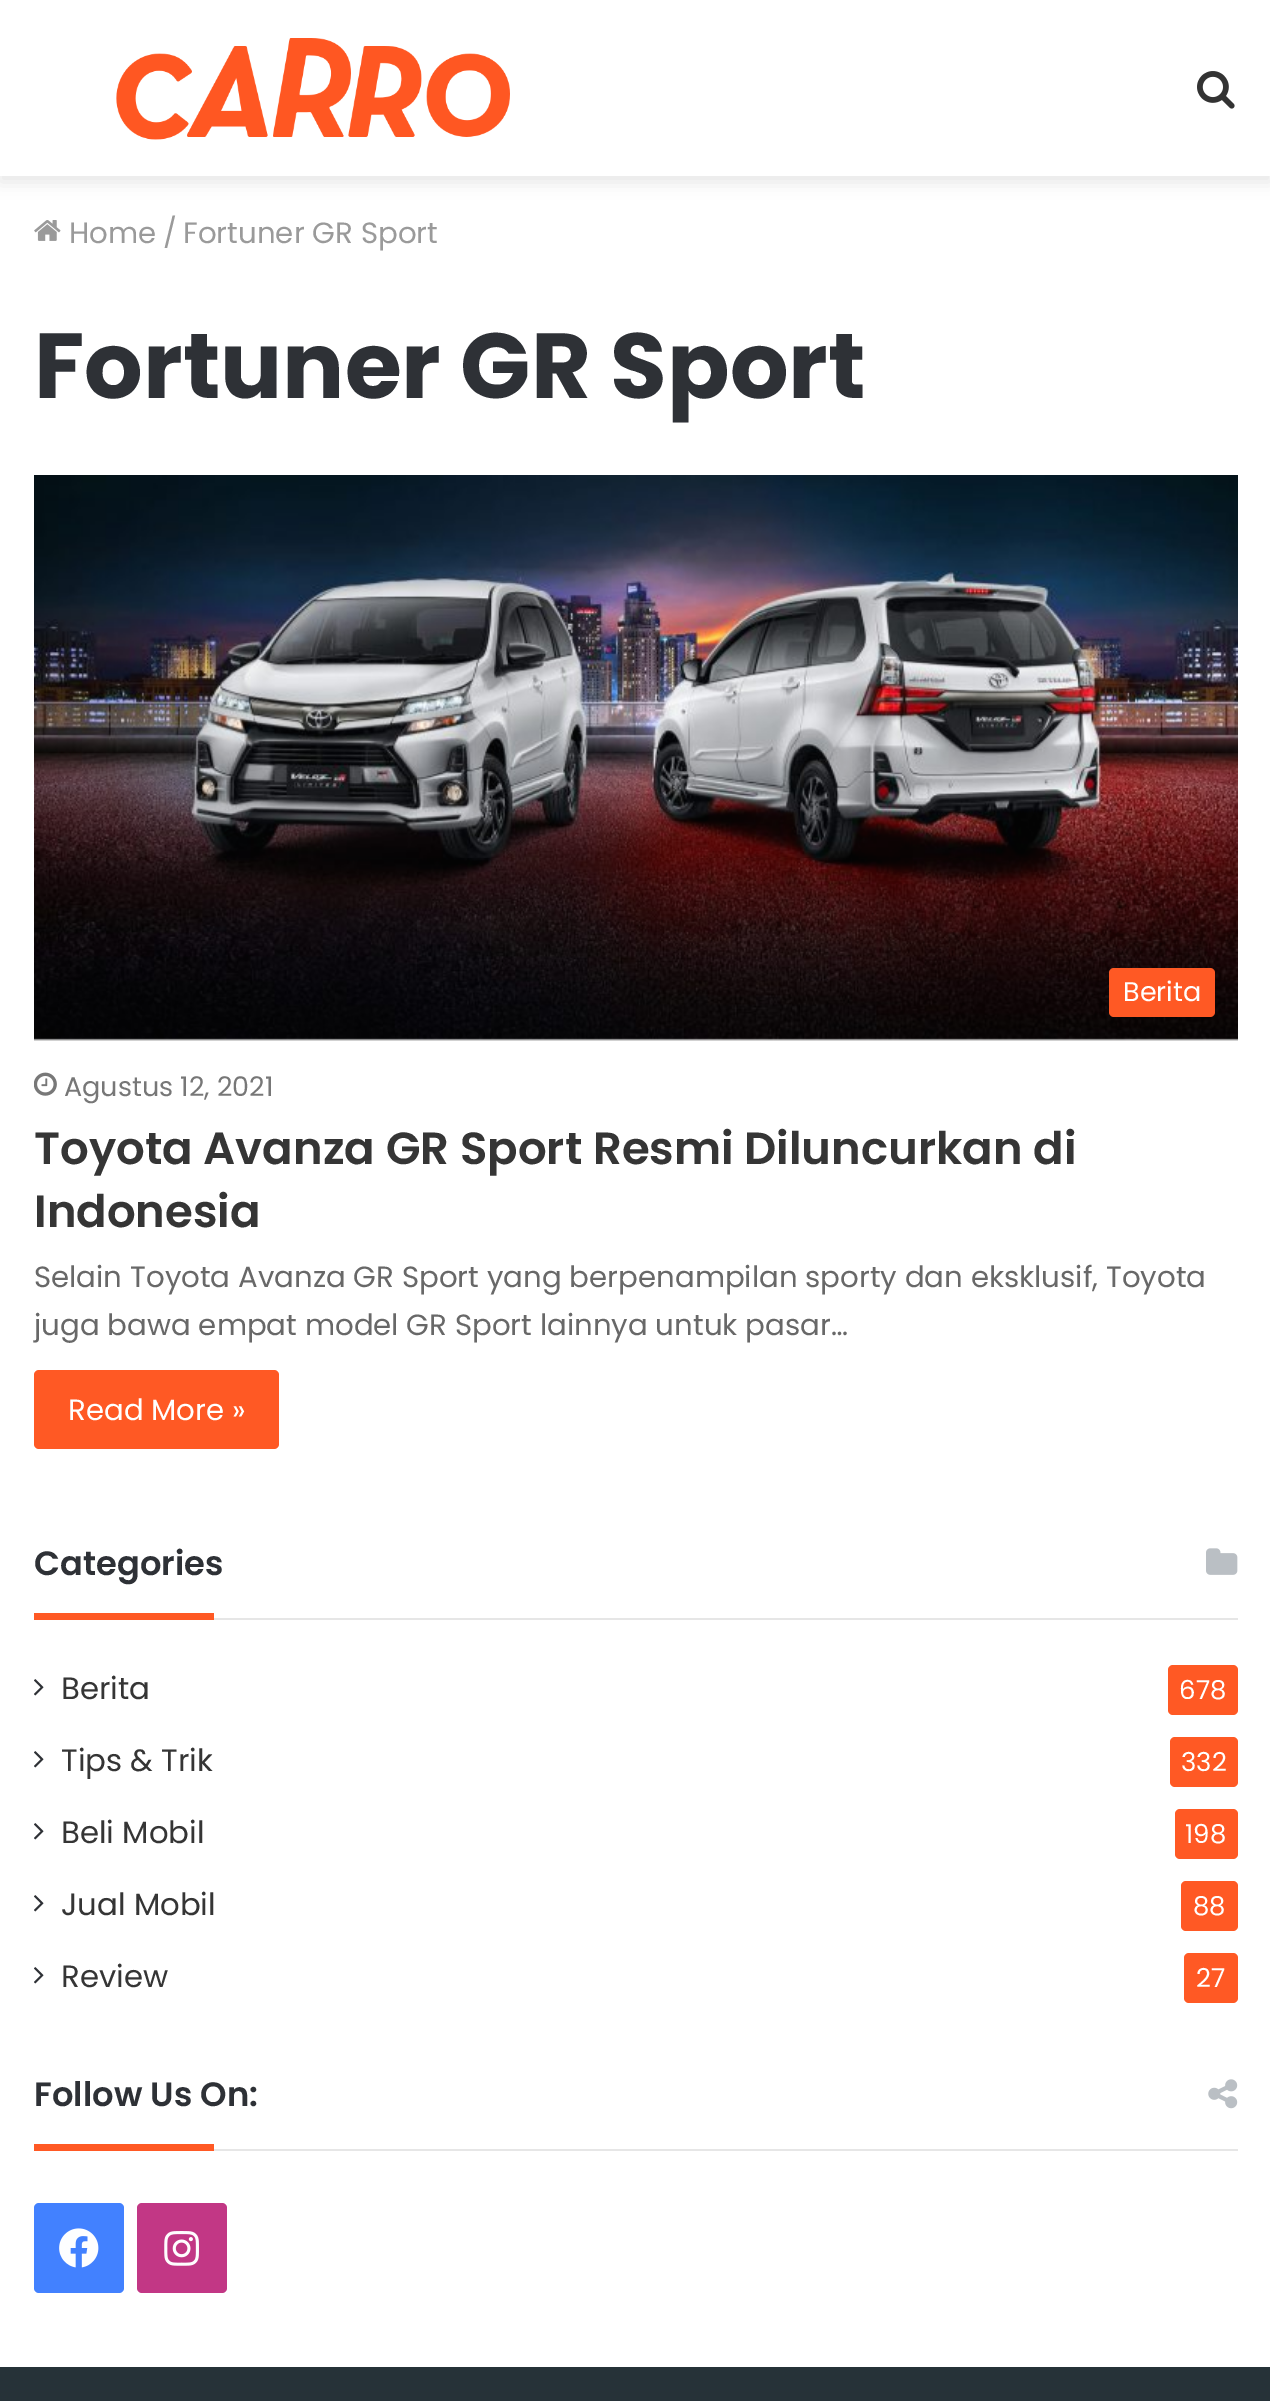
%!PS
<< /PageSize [1270 2401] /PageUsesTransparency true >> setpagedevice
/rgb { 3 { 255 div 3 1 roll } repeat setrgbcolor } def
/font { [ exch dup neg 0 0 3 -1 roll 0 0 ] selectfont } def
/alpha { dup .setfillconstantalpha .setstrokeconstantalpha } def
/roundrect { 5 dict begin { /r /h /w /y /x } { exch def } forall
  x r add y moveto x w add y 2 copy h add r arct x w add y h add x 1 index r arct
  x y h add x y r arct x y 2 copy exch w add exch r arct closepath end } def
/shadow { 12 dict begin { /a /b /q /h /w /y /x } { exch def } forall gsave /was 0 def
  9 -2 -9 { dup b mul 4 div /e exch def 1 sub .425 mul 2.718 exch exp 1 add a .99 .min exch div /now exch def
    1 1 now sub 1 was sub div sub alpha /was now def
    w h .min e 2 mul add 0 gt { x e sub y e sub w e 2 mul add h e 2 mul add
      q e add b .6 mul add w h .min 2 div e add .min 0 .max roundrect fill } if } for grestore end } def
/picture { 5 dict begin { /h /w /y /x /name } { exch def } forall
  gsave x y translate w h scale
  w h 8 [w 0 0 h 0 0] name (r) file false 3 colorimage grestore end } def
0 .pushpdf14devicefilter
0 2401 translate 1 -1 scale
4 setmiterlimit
255 255 255 rgb
0 0 1270 2401 rectfill
0 0 0 rgb
0 7 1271 175 0 8 0.1 shadow
255 255 255 rgb
0 0 1270 176 rectfill
(img/1.rgb) 116 38 394 102 picture
(img/2.rgb) 1197 71 38 38 picture
(img/3.rgb) 34 220 27 21 picture
(img/4.rgb) 34 475 1204 566 picture
255 89 36 rgb
1109 968 106 49 5 roundrect fill
(img/5.rgb) 34 1072 23 24 picture
34 1370 245 79 5 roundrect fill
230 230 230 rgb
214 1618 1024 2 rectfill
(img/6.rgb) 1206 1548 32 27 picture
255 89 36 rgb
34 1613 180 7 rectfill
(img/7.rgb) 34 1679 10 17 picture
1168 1665 70 50 5 roundrect fill
(img/7.rgb) 34 1751 10 17 picture
1170 1737 68 50 5 roundrect fill
(img/7.rgb) 34 1823 10 17 picture
1175 1809 63 50 5 roundrect fill
(img/7.rgb) 34 1895 10 17 picture
1181 1881 57 50 5 roundrect fill
(img/7.rgb) 34 1967 10 17 picture
1184 1953 54 50 5 roundrect fill
230 230 230 rgb
214 2149 1024 2 rectfill
(img/8.rgb) 1208 2079 30 30 picture
255 89 36 rgb
34 2144 180 7 rectfill
66 129 255 rgb
34 2203 90 90 5 roundrect fill
(img/9.rgb) 59 2228 40 40 picture
194 55 133 rgb
137 2203 90 90 5 roundrect fill
(img/10.rgb) 164 2231 35 35 picture
38 50 56 rgb
0 2367 1270 34 rectfill
/Poppins-Regular 29.25 font
154 154 154 rgb
[
  [(Home) 69 243]
  [(/) 163 243]
  [(Fortuner GR Sport) 183 243]
] { aload pop moveto show } forall
/Poppins-Bold 92.25 font
46 49 54 rgb
34 398 moveto (Fortuner GR Sport) show
/Poppins-Regular 27 font
255 255 255 rgb
1123 1001 moveto (Berita) show
119 119 119 rgb
64 1096 moveto (Agustus 12, 2021) show
/Poppins-SemiBold 45 font
53 53 53 rgb
34 1164 moveto (Toyota Avanza GR Sport Resmi Diluncurkan di) show
34 1227 moveto (Indonesia) show
/Poppins-Regular 29.25 font
104 104 104 rgb
34 1287 moveto (Selain Toyota Avanza GR Sport yang berpenampilan sporty dan eksklusif, Toyota) show
34 1335 moveto (juga bawa empat model GR Sport lainnya untuk pasar…) show
255 255 255 rgb
68 1420 moveto (Read More ») show
/Poppins-SemiBold 33.75 font
46 49 54 rgb
34 1575 moveto (Categories) show
/Poppins-Regular 30.75 font
53 53 53 rgb
61 1699 moveto (Berita) show
/Poppins-Regular 26 font
255 255 255 rgb
1179 1699 moveto (678) show
/Poppins-Regular 30.75 font
53 53 53 rgb
61 1771 moveto (Tips & Trik) show
/Poppins-Regular 26 font
255 255 255 rgb
1181 1771 moveto (332) show
/Poppins-Regular 30.75 font
53 53 53 rgb
61 1843 moveto (Beli Mobil) show
/Poppins-Regular 26 font
255 255 255 rgb
1185 1843 moveto (198) show
/Poppins-Regular 30.75 font
53 53 53 rgb
61 1915 moveto (Jual Mobil) show
/Poppins-Regular 26 font
255 255 255 rgb
1193 1915 moveto (88) show
/Poppins-Regular 30.75 font
53 53 53 rgb
61 1987 moveto (Review) show
/Poppins-Regular 26 font
255 255 255 rgb
1196 1987 moveto (27) show
/Poppins-SemiBold 33.75 font
46 49 54 rgb
34 2106 moveto (Follow Us On:) show
.poppdf14devicefilter showpage
